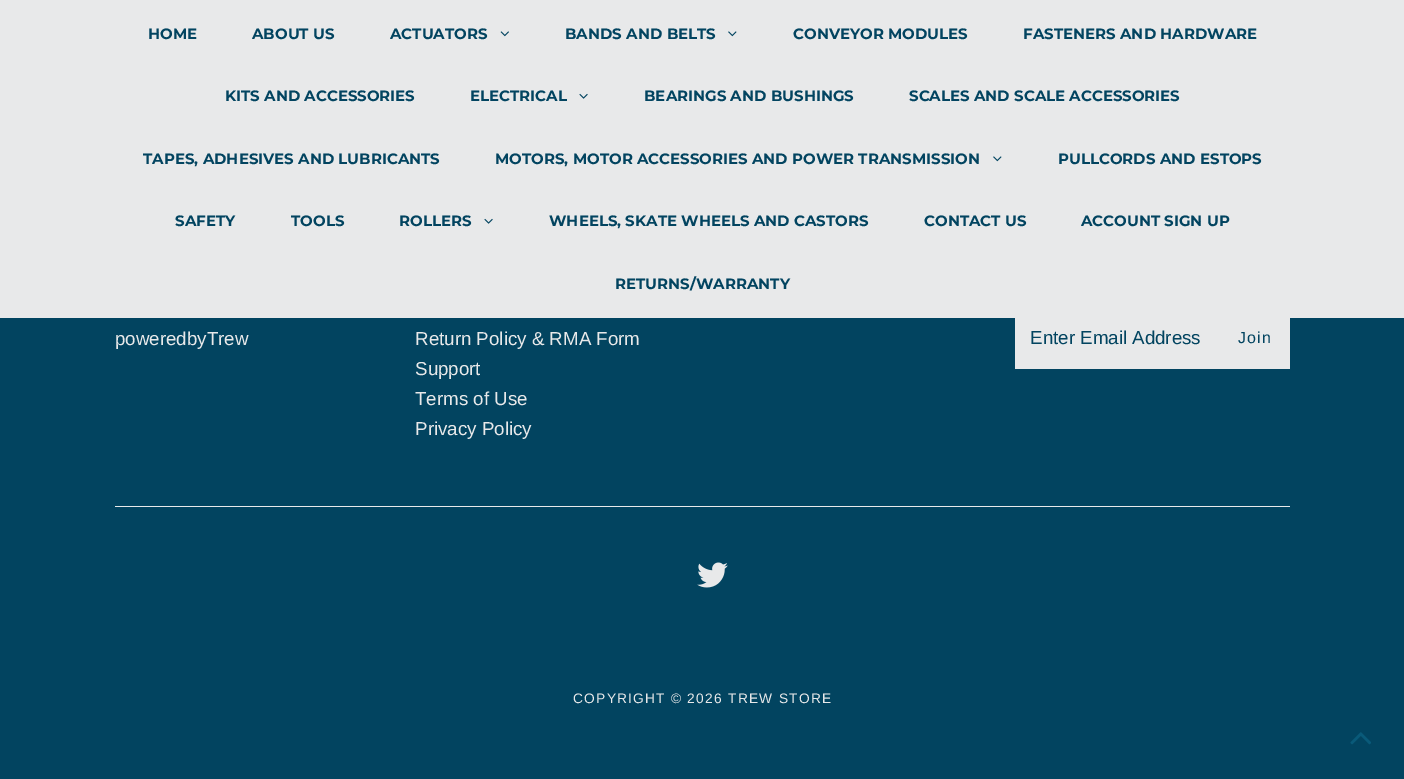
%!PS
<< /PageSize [1404 779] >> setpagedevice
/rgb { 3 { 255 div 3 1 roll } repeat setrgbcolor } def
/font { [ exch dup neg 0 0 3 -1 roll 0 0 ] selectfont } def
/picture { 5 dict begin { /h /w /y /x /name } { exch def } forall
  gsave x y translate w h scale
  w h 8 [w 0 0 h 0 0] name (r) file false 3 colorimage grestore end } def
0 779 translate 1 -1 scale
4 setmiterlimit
2 68 96 rgb
0 0 1404 779 rectfill
232 233 234 rgb
0 0 1404 318 rectfill
(img/1.rgb) 500 31 9 6 picture
(img/2.rgb) 728 31 9 6 picture
(img/3.rgb) 579 93 9 6 picture
(img/2.rgb) 993 156 9 6 picture
(img/3.rgb) 484 218 9 6 picture
1015 318 275 51 rectfill
115 506 1175 1 rectfill
(img/4.rgb) 697 562 31 26 picture
(img/5.rgb) 1350 732 21 13 picture
/Montserrat-Bold 15 font
2 68 96 rgb
[
  [(HOME) 148 39]
  [(ABOUT US) 252 39]
  [(ACTUATORS) 390 39]
  [(BANDS AND BELTS) 565 39]
  [(CONVEYOR MODULES) 793 39]
  [(FASTENERS AND HARDWARE) 1023 39]
  [(KITS AND ACCESSORIES) 225 101]
  [(ELECTRICAL) 470 101]
  [(BEARINGS AND BUSHINGS) 644 101]
  [(SCALES AND SCALE ACCESSORIES) 909 101]
  [(TAPES, ADHESIVES AND LUBRICANTS) 143 164]
  [(MOTORS, MOTOR ACCESSORIES AND POWER TRANSMISSION) 495 164]
  [(PULLCORDS AND ESTOPS) 1058 164]
  [(SAFETY) 175 226]
  [(TOOLS) 291 226]
  [(ROLLERS) 399 226]
  [(WHEELS, SKATE WHEELS AND CASTORS) 549 226]
  [(CONTACT US) 924 226]
  [(ACCOUNT SIGN UP) 1081 226]
  [(RETURNS/WARRANTY) 615 289]
] { aload pop moveto show } forall
/LiberationSans-Regular 18.75 font
232 233 234 rgb
[
  [(poweredbyTrew) 115 345]
  [(Return Policy & RMA Form) 415 345]
  [(Support) 415 375]
  [(Terms of Use) 415 405]
  [(Privacy Policy) 415 435]
] { aload pop moveto show } forall
2 68 96 rgb
1030 344 moveto (Enter Email Address) show
/LiberationSans-Regular 16 font
1238 343 moveto 1.25 0 (Join) ashow
/LiberationSans-Regular 13.75 font
232 233 234 rgb
573 703 moveto 1.25 0 (COPYRIGHT © 2026 TREW STORE) ashow
showpage
